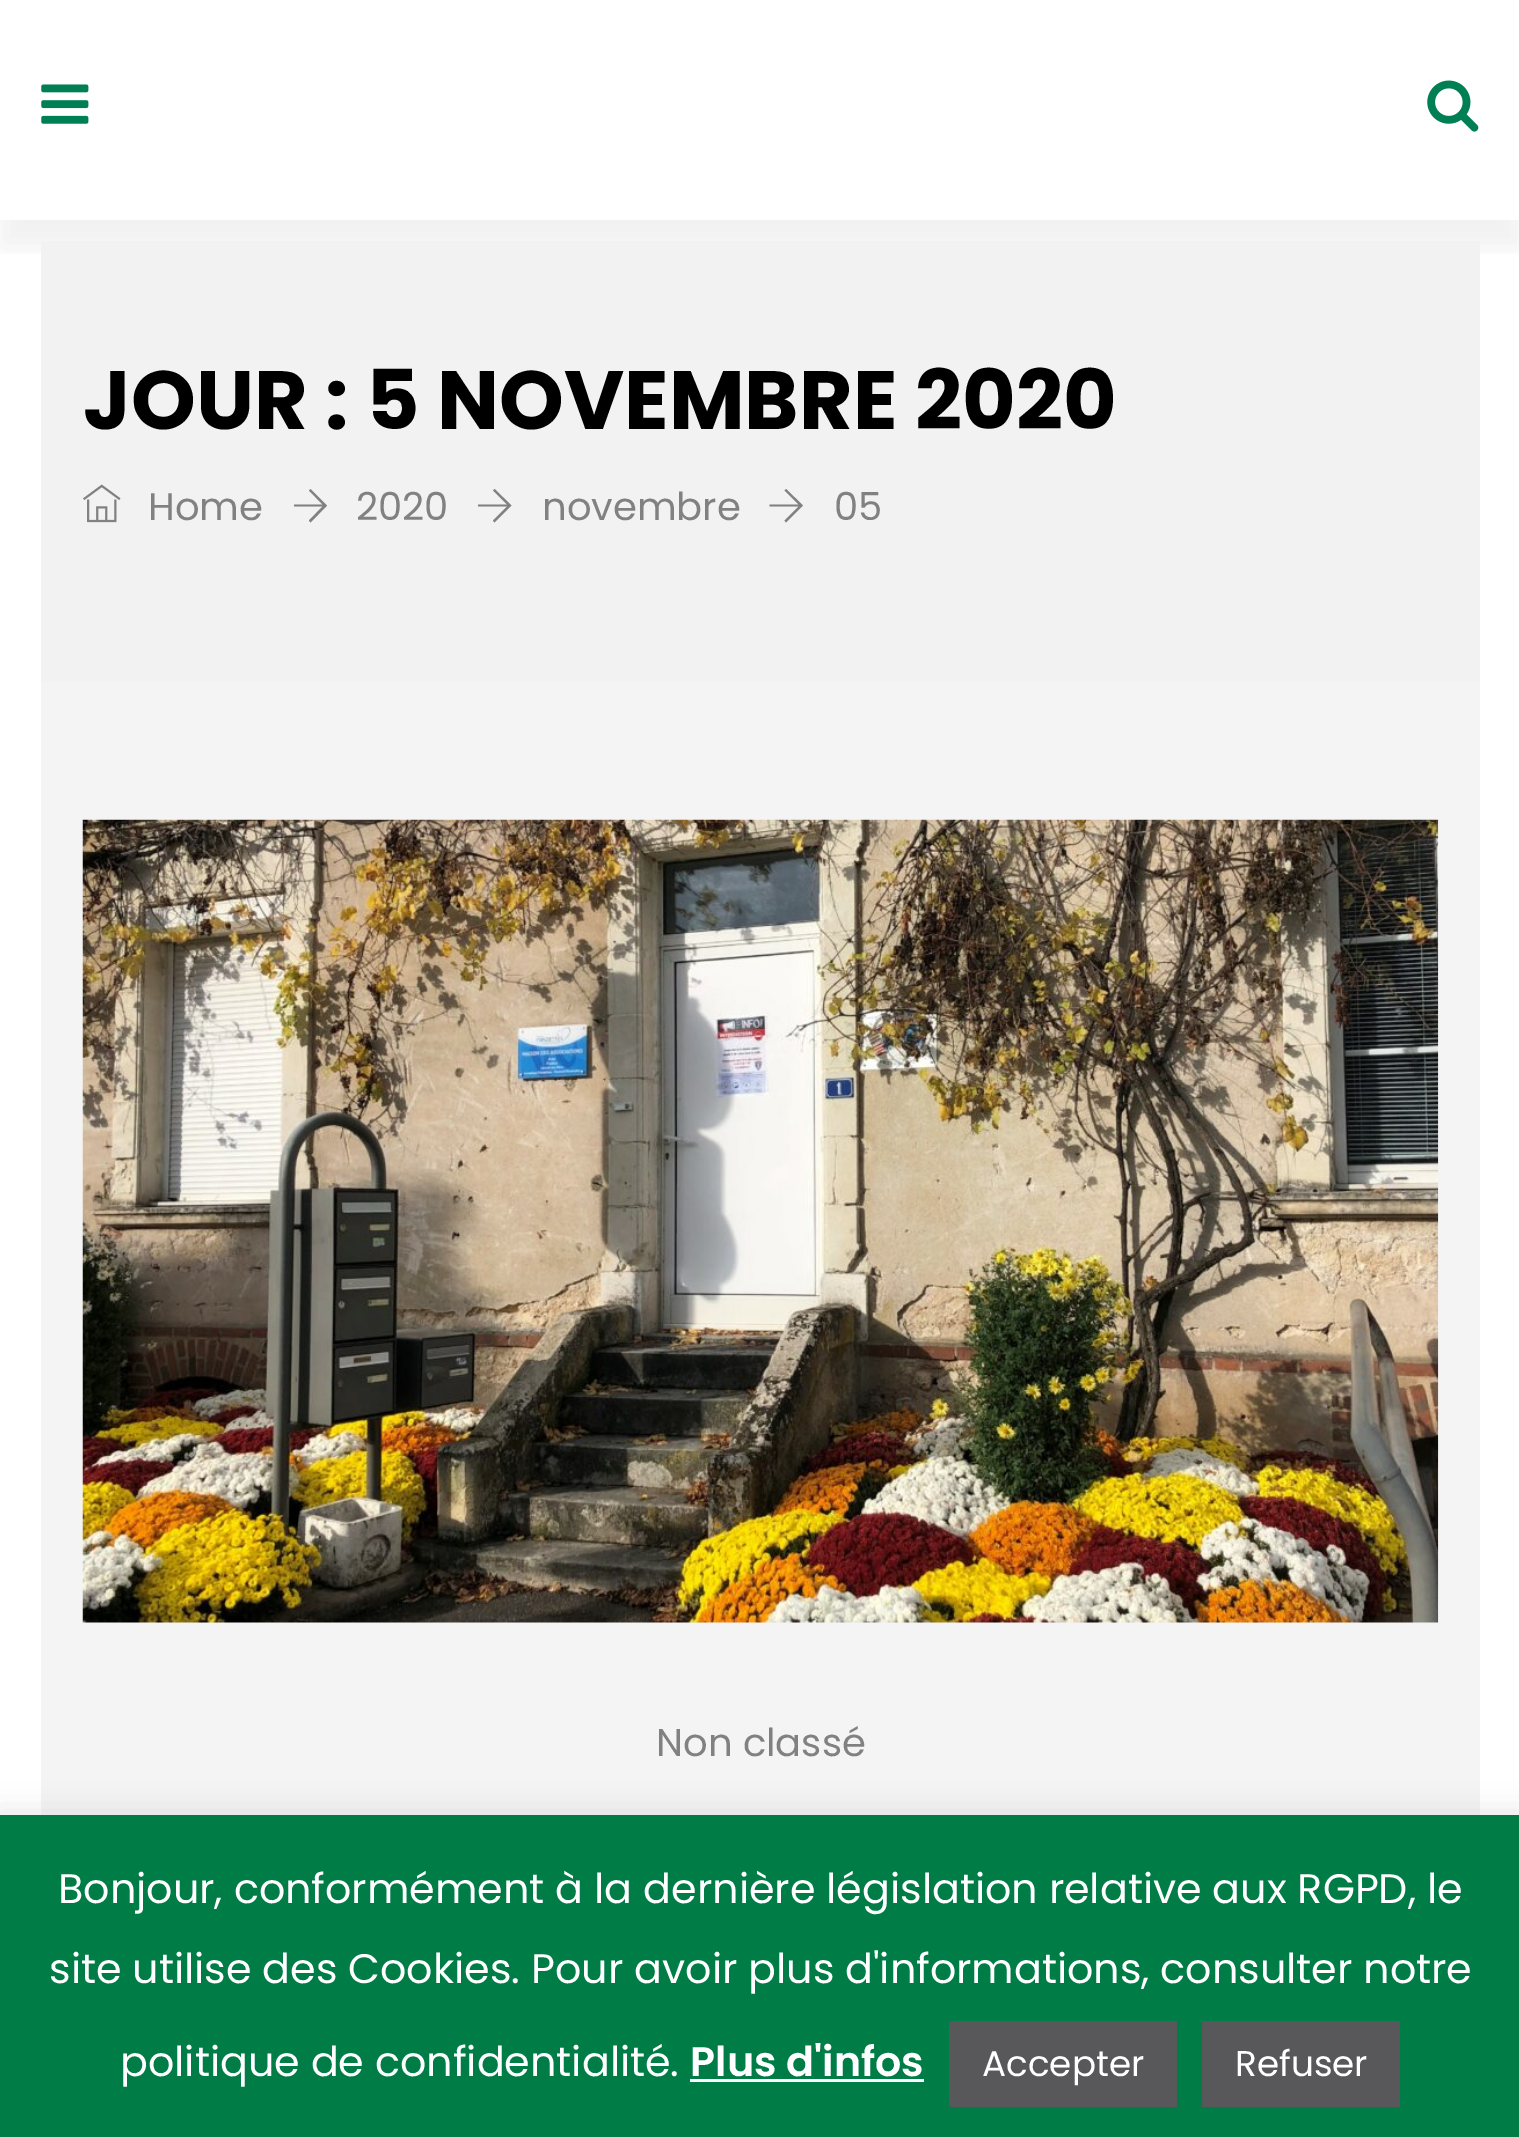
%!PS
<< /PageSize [1519 2137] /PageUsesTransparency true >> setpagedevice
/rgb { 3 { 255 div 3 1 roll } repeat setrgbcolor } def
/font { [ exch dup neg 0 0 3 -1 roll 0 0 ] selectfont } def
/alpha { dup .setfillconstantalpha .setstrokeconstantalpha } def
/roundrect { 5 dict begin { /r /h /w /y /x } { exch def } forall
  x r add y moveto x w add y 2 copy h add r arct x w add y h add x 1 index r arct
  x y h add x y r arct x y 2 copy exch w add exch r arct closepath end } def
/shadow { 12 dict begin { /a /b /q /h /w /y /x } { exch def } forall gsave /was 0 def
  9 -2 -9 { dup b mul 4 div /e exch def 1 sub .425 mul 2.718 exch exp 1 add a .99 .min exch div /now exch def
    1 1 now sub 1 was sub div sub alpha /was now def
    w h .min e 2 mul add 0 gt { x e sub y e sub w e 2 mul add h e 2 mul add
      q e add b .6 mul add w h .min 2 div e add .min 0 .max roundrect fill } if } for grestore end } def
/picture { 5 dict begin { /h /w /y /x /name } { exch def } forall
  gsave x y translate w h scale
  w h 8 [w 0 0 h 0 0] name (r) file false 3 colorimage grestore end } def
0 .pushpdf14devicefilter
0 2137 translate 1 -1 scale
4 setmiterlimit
255 255 255 rgb
0 0 1519 2137 rectfill
gsave
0 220 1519 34 rectclip
0 0 0 rgb
0 28 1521 220 0 14 0.06 shadow
grestore
(img/1.rgb) 41 84 48 40 picture
(img/2.rgb) 1427 80 52 52 picture
242 242 242 rgb
41 241 1439 441 rectfill
(img/3.rgb) 83 484 38 39 picture
129 129 129 rgb
327 505.5 moveto 310.5 522.5 lineto 309 520.5 lineto 322.5 506.5 lineto 294 506.5 lineto 294 504.5 lineto 322.5 504.5 lineto 309 490.5 lineto 310.5 489 lineto closepath fill
511.5 505.5 moveto 494.5 522.5 lineto 493 520.5 lineto 507 506.5 lineto 478 506.5 lineto 478 504.5 lineto 507 504.5 lineto 493 490.5 lineto 494.5 489 lineto closepath fill
803 505.5 moveto 786 522.5 lineto 784.5 520.5 lineto 798.5 506.5 lineto 769.5 506.5 lineto 769.5 504.5 lineto 798.5 504.5 lineto 784.5 490.5 lineto 786 489 lineto closepath fill
244 244 244 rgb
41 682 1439 1133 rectfill
(img/4.rgb) 82 819 1357 804 picture
172 171 171 rgb
0 1812 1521 325 0 14 0.3 shadow
[
  [0 1815 1519 322 0 125 71]
  [690 2079 234 3 255 255 255]
  [949 2021 228 86 88 88 90]
  [1202 2021 198 86 88 88 90]
] { aload pop rgb rectfill } forall
/Poppins-Bold 82.5 font
0 0 0 rgb
83 429 moveto (JOUR : 5 NOVEMBRE 2020) show
/Poppins-Regular 38.5 font
129 129 129 rgb
[
  [(Home) 148 520]
  [(2020) 356 520]
  [(novembre) 542 520]
  [(05) 834 520]
  [(Non classé) 656 1756]
] { aload pop moveto show } forall
/Poppins-Regular 41.25 font
255 255 255 rgb
[
  [(Bonjour, conformément à la dernière législation relative aux RGPD, le) 58 1903]
  [(site utilise des Cookies. Pour avoir plus d'informations, consulter notre) 49 1983]
  [(politique de confidentialité.) 120 2076]
] { aload pop moveto show } forall
/Poppins-SemiBold 41.25 font
690 2076 moveto (Plus d'infos) show
/Poppins-Regular 35.75 font
982 2076 moveto (Accepter) show
1235 2076 moveto (Refuser) show
.poppdf14devicefilter showpage
